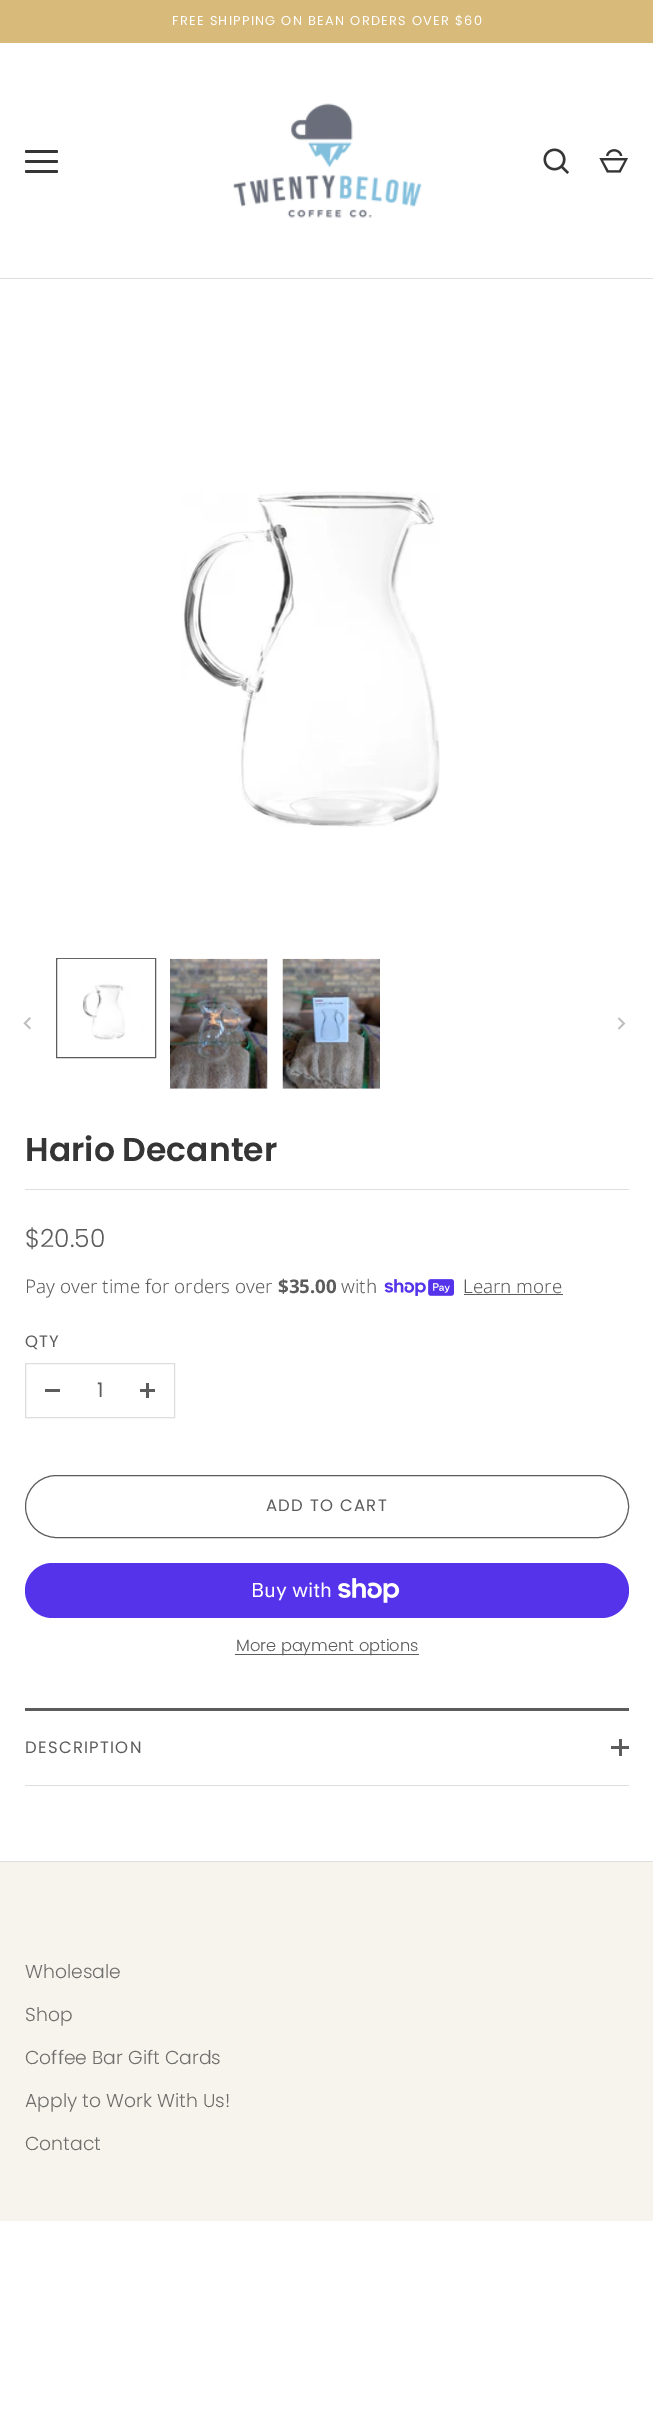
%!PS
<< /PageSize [653 2420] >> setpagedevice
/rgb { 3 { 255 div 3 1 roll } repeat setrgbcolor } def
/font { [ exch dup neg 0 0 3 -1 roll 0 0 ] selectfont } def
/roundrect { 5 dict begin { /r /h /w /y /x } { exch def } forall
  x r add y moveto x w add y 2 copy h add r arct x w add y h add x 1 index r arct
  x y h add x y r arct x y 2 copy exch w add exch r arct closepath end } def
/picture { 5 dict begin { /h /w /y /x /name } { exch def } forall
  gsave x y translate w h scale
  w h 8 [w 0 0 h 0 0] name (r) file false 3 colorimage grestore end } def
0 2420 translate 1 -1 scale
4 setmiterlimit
255 255 255 rgb
0 0 653 2420 rectfill
216 186 122 rgb
0 0 653 43 rectfill
52 53 52 rgb
25 150 33 3 1.5 roundrect fill
25 160 33 3 1.5 roundrect fill
25 170 33 3 1.5 roundrect fill
(img/1.rgb) 233 103 189 115 picture
(img/2.rgb) 543 148 26 26 picture
(img/3.rgb) 599 149 29 24 picture
222 222 222 rgb
0 278 653 1 rectfill
(img/4.rgb) 182 491 258 337 picture
92 92 92 rgb
56.5 958.5 99 99 rectstroke
(img/5.rgb) 58 958 97 82 picture
(img/6.rgb) 170 958 98 131 picture
(img/7.rgb) 282 958 98 131 picture
(img/8.rgb) 23 1017 8 13 picture
(img/9.rgb) 617 1017 9 13 picture
222 222 222 rgb
25 1189 604 1 rectfill
(img/10.rgb) 384 1279 70 17 picture
92 92 92 rgb
464 1294 99 1 rectfill
222 222 222 rgb
25.5 1363.5 149 54 rectstroke
[
  [45 1389 15 3 92 92 92]
  [140 1389 15 3 92 92 92]
  [146 1383 3 15 92 92 92]
] { aload pop rgb rectfill } forall
25.5 1475.5 603 62 31 roundrect stroke
84 51 235 rgb
25 1563 604 55 27.5 roundrect fill
(img/11.rgb) 338 1578 62 25 picture
[
  [235 1654 184 1 92 92 92]
  [25 1708 604 3 92 92 92]
  [25 1785 604 1 222 222 222]
  [611 1746 18 3 92 92 92]
  [619 1739 3 17 92 92 92]
  [0 1862 653 359 246 244 237]
  [0 1861 653 1 222 222 222]
] { aload pop rgb rectfill } forall
/Poppins-Regular 12.9 font
255 255 255 rgb
172 25 moveto 1.3 0 (FREE SHIPPING ON BEAN ORDERS OVER $60) ashow
/Poppins-SemiBold 33 font
52 53 52 rgb
25 1161 moveto (Hario Decanter) show
/Poppins-Light 25 font
92 92 92 rgb
25 1247 moveto ($20.50) show
/NotoSans-Light 18.75 font
25 1293 moveto (Pay over time for orders over) show
/NotoSans-Bold 18.75 font
278 1293 moveto ($35.00) show
/NotoSans-Light 18.75 font
341 1293 moveto (with) show
463 1293 moveto (Learn more) show
/Poppins-Regular 16.5 font
25 1347 moveto 1.25 0 (QTY) ashow
/Poppins-Regular 20 font
97 1397 moveto (1) show
/Poppins-Regular 16.5 font
266 1511 moveto 1.25 0 (ADD TO CART) ashow
/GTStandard-Regular 20 font
255 255 255 rgb
251 1597 moveto (Buy with) show
/Poppins-Light 16.25 font
92 92 92 rgb
236 1651 moveto (More payment options) show
/Poppins-Regular 16.5 font
25 1753 moveto 1.25 0 (DESCRIPTION) ashow
/Poppins-Light 18.75 font
110 110 108 rgb
[
  [(Wholesale) 25 1978]
  [(Shop) 25 2021]
  [(Coffee Bar Gift Cards) 25 2064]
  [(Apply to Work With Us!) 25 2107]
  [(Contact) 25 2150]
] { aload pop moveto show } forall
showpage
